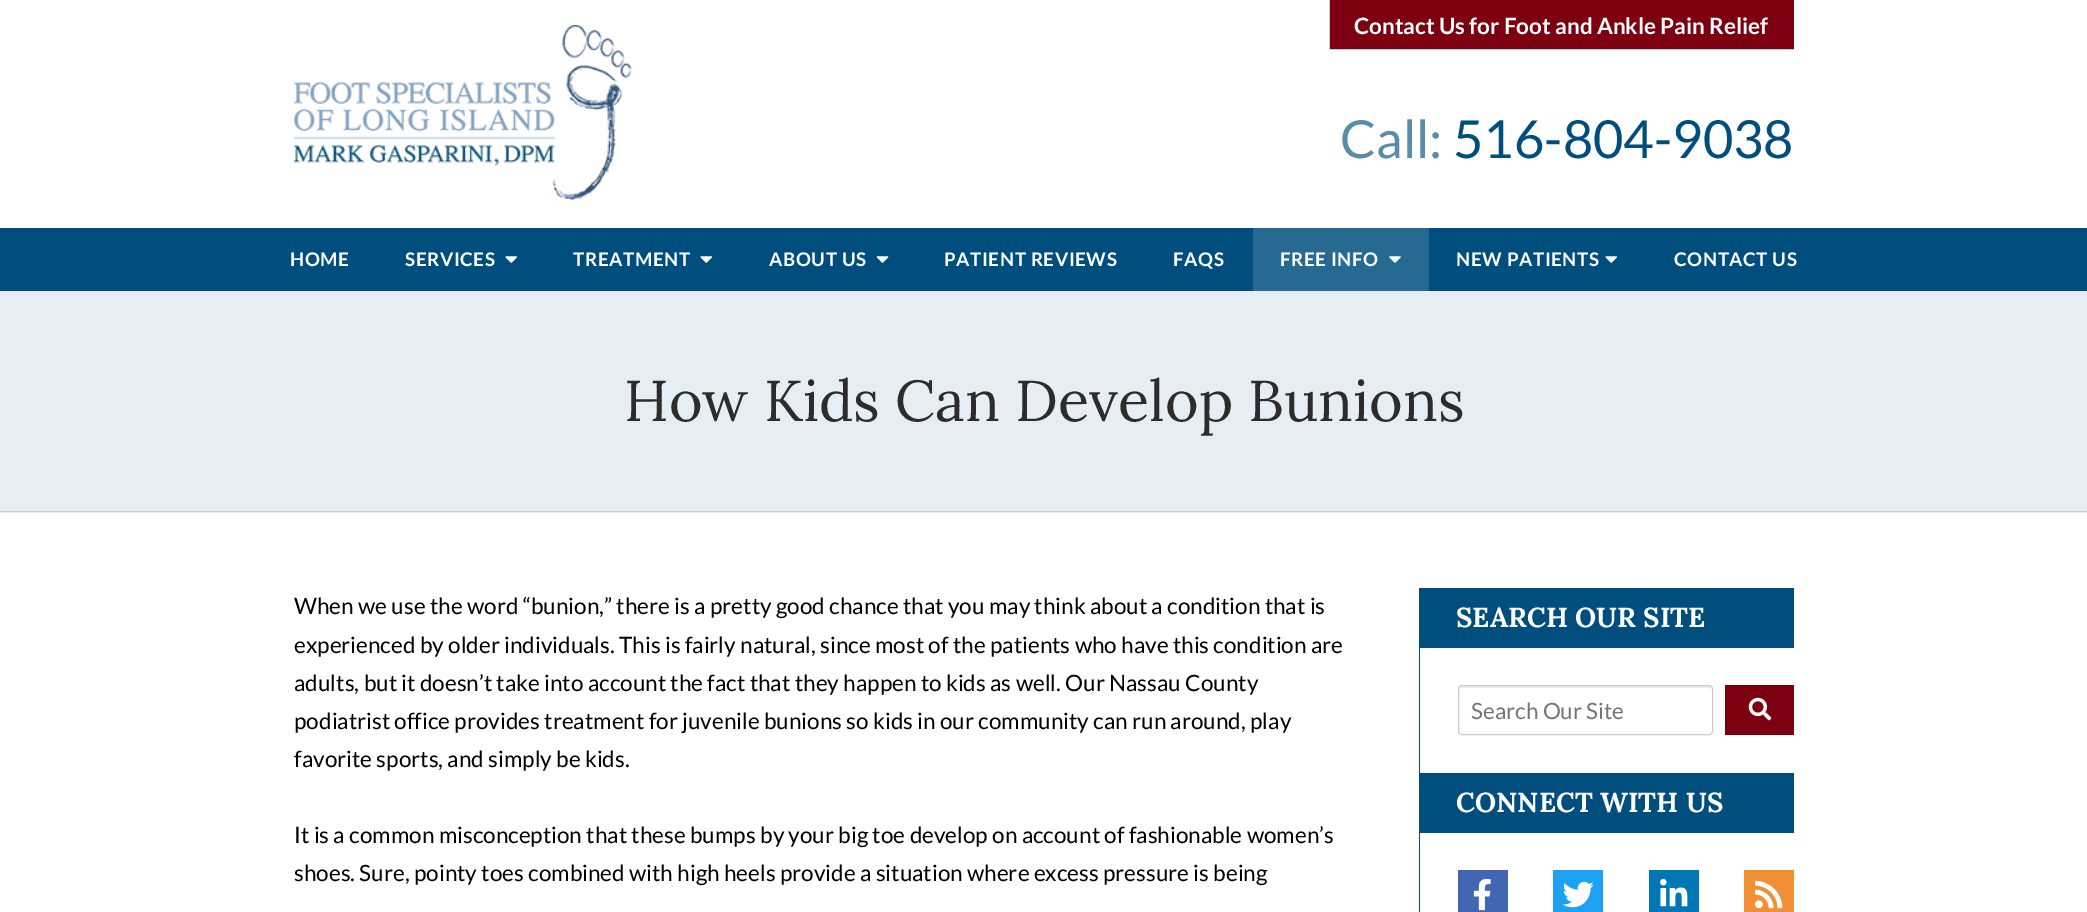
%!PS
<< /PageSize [2087 912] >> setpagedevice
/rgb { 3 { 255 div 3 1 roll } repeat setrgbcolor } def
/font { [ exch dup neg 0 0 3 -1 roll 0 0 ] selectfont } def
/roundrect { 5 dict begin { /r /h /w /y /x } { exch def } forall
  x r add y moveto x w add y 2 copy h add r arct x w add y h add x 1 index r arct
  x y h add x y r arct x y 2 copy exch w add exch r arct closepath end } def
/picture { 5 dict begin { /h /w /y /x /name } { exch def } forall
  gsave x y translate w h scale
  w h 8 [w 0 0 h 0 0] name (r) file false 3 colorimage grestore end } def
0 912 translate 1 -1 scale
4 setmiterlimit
255 255 255 rgb
0 0 2087 912 rectfill
(img/1.rgb) 293 25 339 175 picture
[
  [1329 49 465 1 204 204 204]
  [1329 0 1 50 204 204 204]
  [1330 0 464 49 125 0 16]
  [0 228 2087 63 0 78 125]
] { aload pop rgb rectfill } forall
(img/2.rgb) 505 256 12 7 picture
(img/2.rgb) 700 256 12 7 picture
(img/3.rgb) 876 256 13 7 picture
38 105 145 rgb
1253 228 176 63 rectfill
(img/4.rgb) 1389 256 12 7 picture
(img/2.rgb) 1605 256 12 7 picture
[
  [0 291 2087 222 230 238 243]
  [0 511 2087 1 184 206 219]
  [1419 588 375 60 0 78 125]
  [1419 648 1 125 0 78 125]
] { aload pop rgb rectfill } forall
236 236 236 rgb
1461 688 moveto 1709 688 lineto 1710 688 1711 689 1711 690 curveto 1711 688 lineto 1711 687 1710 686 1708 686 curveto 1462 686 lineto 1460 686 1459 687 1459 688 curveto 1459 690 lineto 1459 689 1460 688 1461 688 curveto closepath fill
204 204 204 rgb
1458.5 685.5 254 49 3.5 roundrect stroke
125 0 16 rgb
1725 685 69 50 rectfill
(img/5.rgb) 1748 697 24 24 picture
[
  [1419 773 375 60 0 78 125]
  [1419 833 1 79 0 78 125]
  [1458 870 50 42 66 103 178]
] { aload pop rgb rectfill } forall
(img/6.rgb) 1473 878 18 33 picture
29 161 242 rgb
1553 870 50 42 rectfill
(img/7.rgb) 1562 881 32 27 picture
0 119 181 rgb
1649 870 50 42 rectfill
(img/8.rgb) 1660 878 28 29 picture
241 143 52 rgb
1744 870 50 42 rectfill
(img/9.rgb) 1755 880 28 29 picture
/Lato-Bold 22.5 font
255 255 255 rgb
1354 34 moveto (Contact Us for Foot and Ankle Pain Relief) show
/Lato-Regular 52.5 font
89 140 171 rgb
1340 158 moveto (Call:) show
0 78 125 rgb
1453 158 moveto (516-804-9038) show
/Lato-Bold 18.75 font
255 255 255 rgb
290 266 moveto 0.6 0 (HOME) ashow
405 266 moveto 0.6 0 (SERVICES) ashow
573 266 moveto 0.6 0 (TREATMENT) ashow
769 266 moveto 0.6 0 (ABOUT US) ashow
944 266 moveto 0.6 0 (PATIENT REVIEWS) ashow
1173 266 moveto 0.6 0 (FAQS) ashow
1280 266 moveto 0.6 0 (FREE INFO) ashow
1456 266 moveto 0.6 0 (NEW PATIENTS) ashow
1674 266 moveto 0.6 0 (CONTACT US) ashow
/Lora-Regular 57.5 font
44 44 44 rgb
624 421 moveto (How Kids Can Develop Bunions) show
/Lato-Regular 22.5 font
0 0 0 rgb
[
  [(When we use the word “bunion,” there is a pretty good chance that you may think about a condition that is) 294 614]
  [(experienced by older individuals. This is fairly natural, since most of the patients who have this condition are) 294 653]
  [(adults, but it doesn’t take into account the fact that they happen to kids as well. Our Nassau County) 294 691]
  [(podiatrist office provides treatment for juvenile bunions so kids in our community can run around, play) 294 729]
  [(favorite sports, and simply be kids.) 294 767]
  [(It is a common misconception that these bumps by your big toe develop on account of fashionable women’s) 294 843]
  [(shoes. Sure, pointy toes combined with high heels provide a situation where excess pressure is being) 294 881]
] { aload pop moveto show } forall
/Lora-Bold 27.5 font
255 255 255 rgb
1456 627 moveto (SEARCH OUR SITE) show
/Lato-Regular 22.5 font
117 117 117 rgb
1471 719 moveto (Search Our Site) show
/Lora-Bold 27.5 font
255 255 255 rgb
1456 812 moveto (CONNECT WITH US) show
showpage
